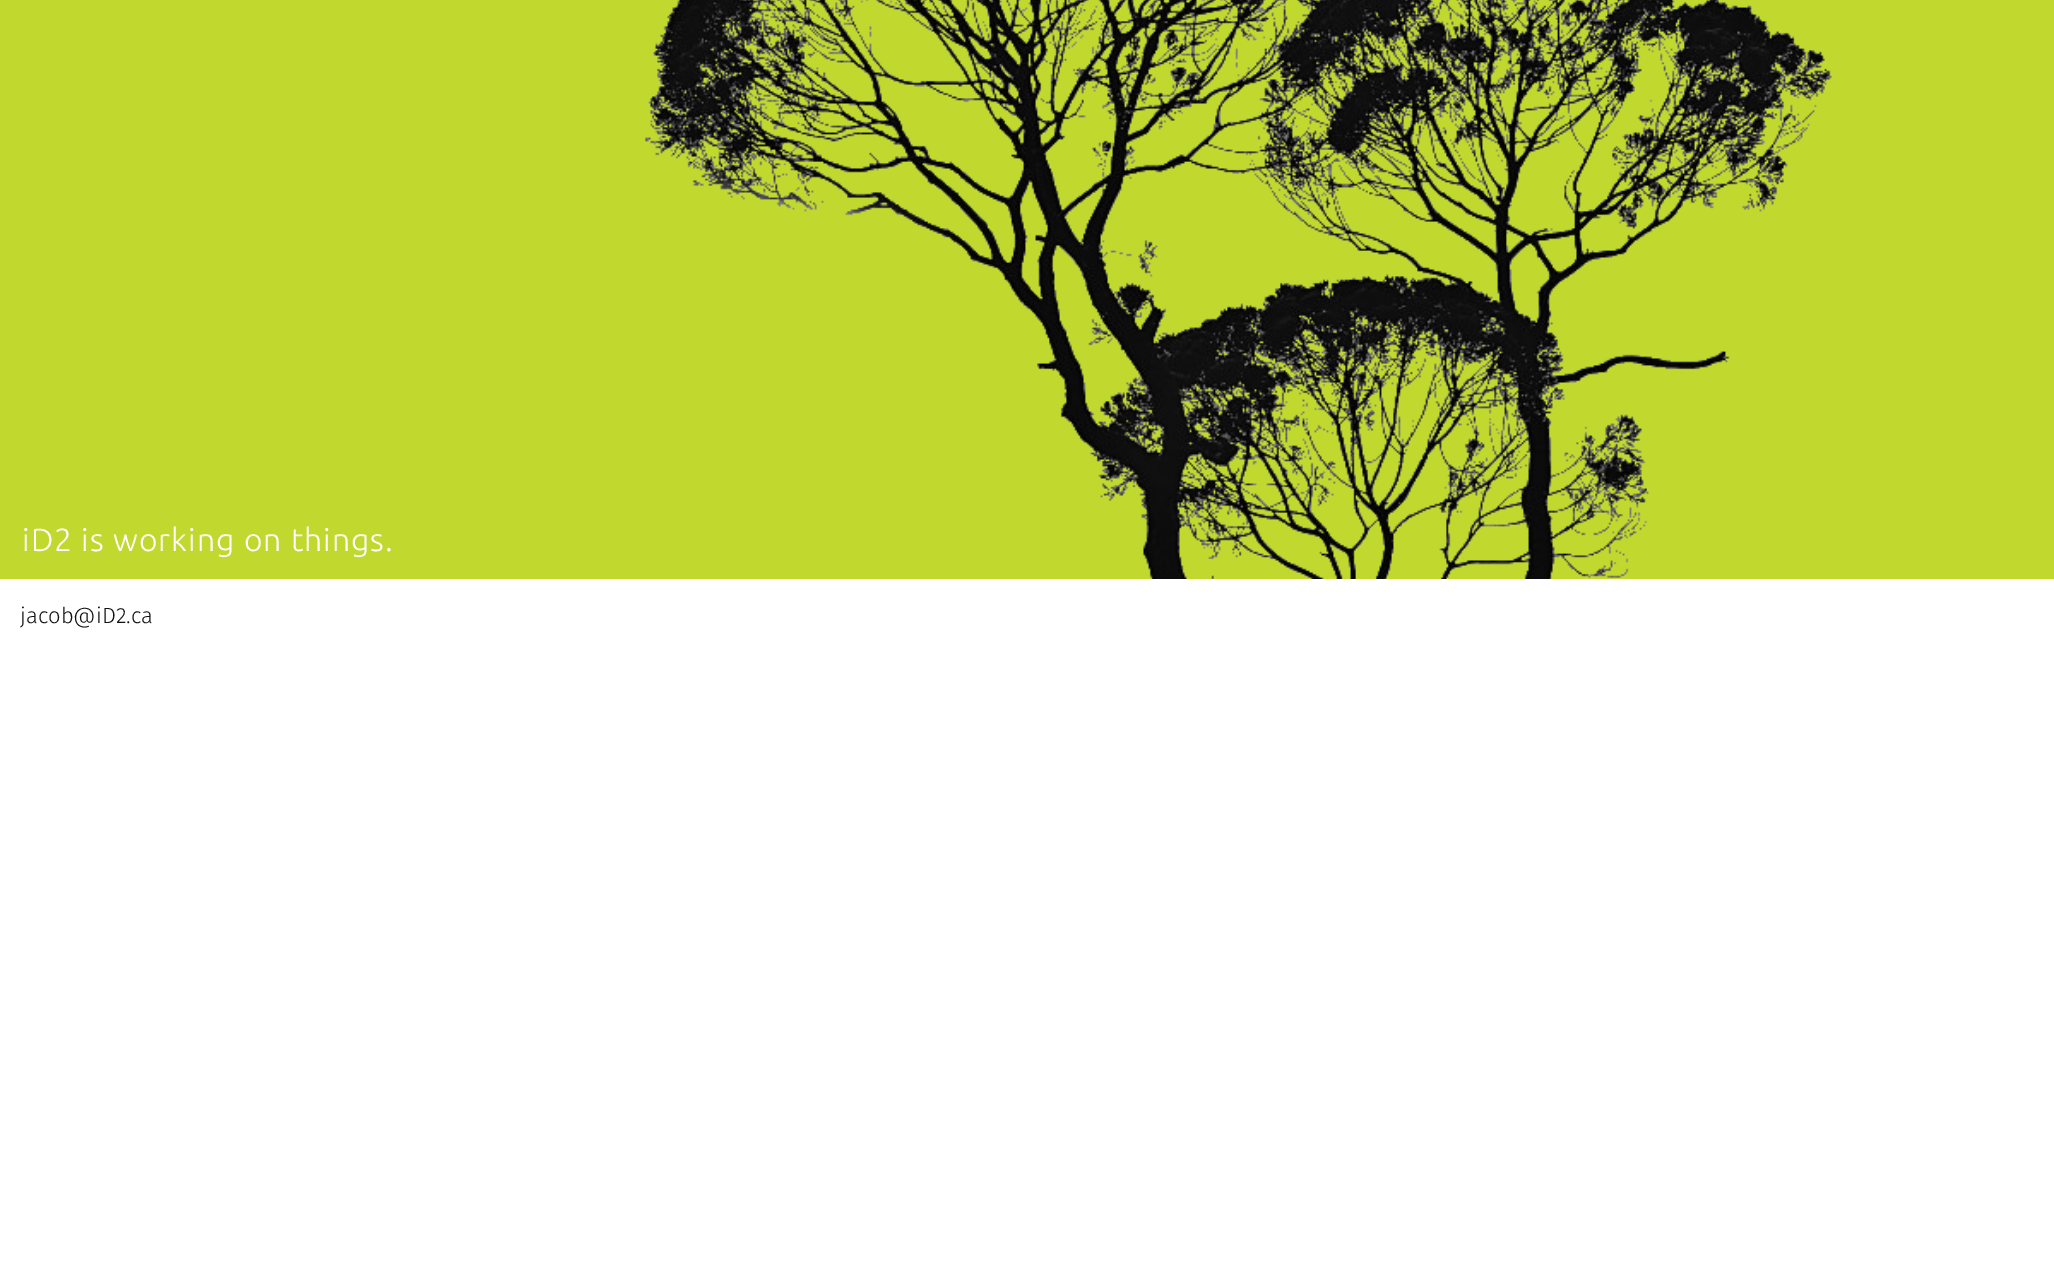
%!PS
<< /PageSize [2054 1285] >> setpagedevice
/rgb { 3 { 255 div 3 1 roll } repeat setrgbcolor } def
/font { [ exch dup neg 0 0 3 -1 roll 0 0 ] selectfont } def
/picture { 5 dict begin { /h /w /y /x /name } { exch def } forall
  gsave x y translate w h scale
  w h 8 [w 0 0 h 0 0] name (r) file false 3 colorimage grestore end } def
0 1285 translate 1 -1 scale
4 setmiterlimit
255 255 255 rgb
0 0 2054 1285 rectfill
193 216 47 rgb
0 0 2054 579 rectfill
(img/1.rgb) 645 0 1187 579 picture
/Ubuntu-Light 32 font
255 255 255 rgb
22 551 moveto 1 0 (iD2 is working on things.) ashow
/FiraSans-Light 22 font
17 17 17 rgb
20 623 moveto (jacob@iD2.ca) show
showpage
